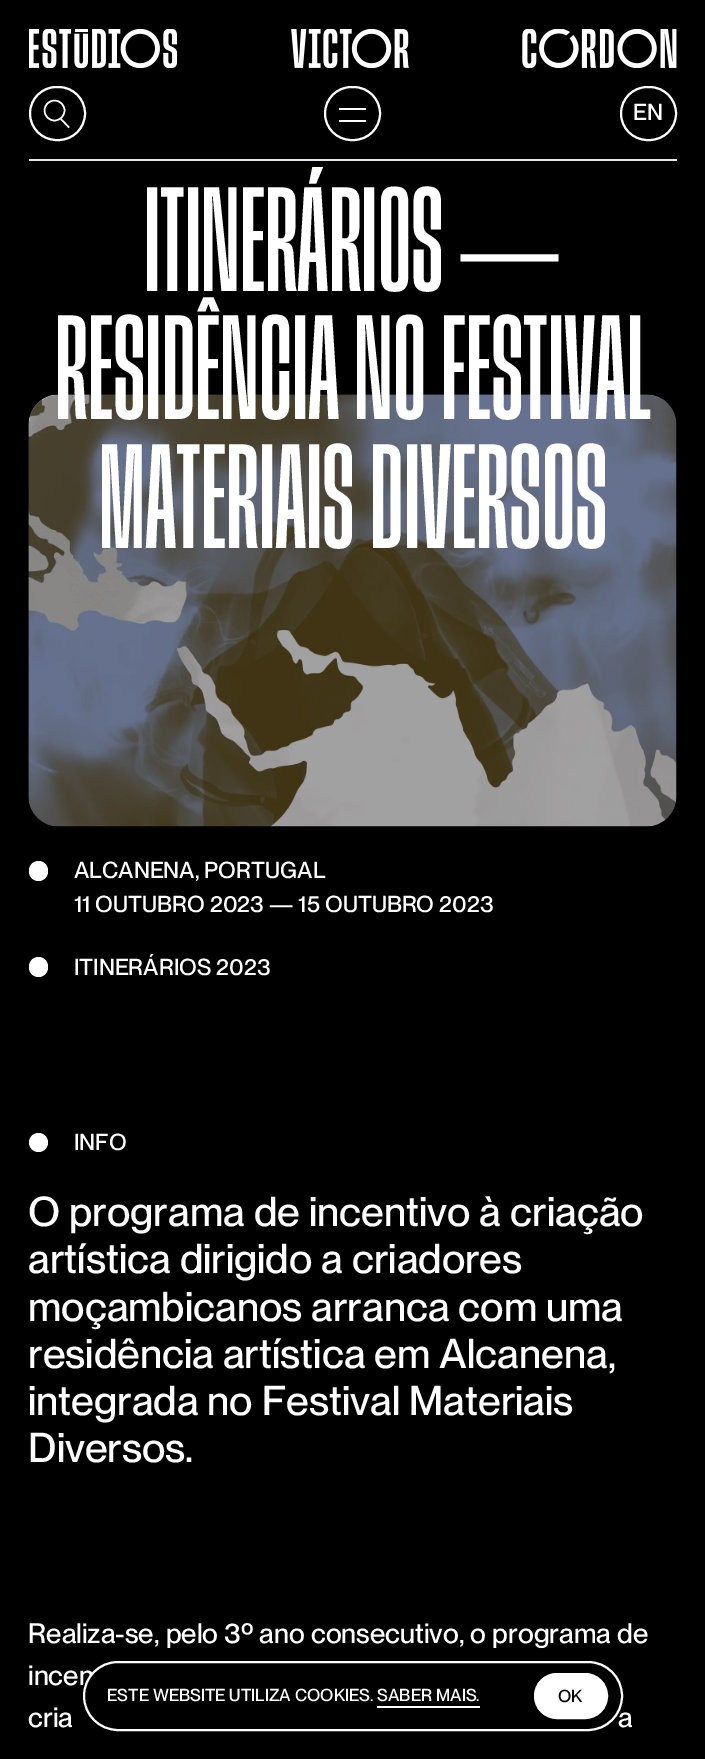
%!PS
<< /PageSize [705 1759] /PageUsesTransparency true >> setpagedevice
/rgb { 3 { 255 div 3 1 roll } repeat setrgbcolor } def
/font { [ exch dup neg 0 0 3 -1 roll 0 0 ] selectfont } def
/alpha { dup .setfillconstantalpha .setstrokeconstantalpha } def
/circle { newpath 0 360 arc closepath } def
/roundrect { 5 dict begin { /r /h /w /y /x } { exch def } forall
  x r add y moveto x w add y 2 copy h add r arct x w add y h add x 1 index r arct
  x y h add x y r arct x y 2 copy exch w add exch r arct closepath end } def
/picture { 5 dict begin { /h /w /y /x /name } { exch def } forall
  gsave x y translate w h scale
  w h 8 [w 0 0 h 0 0] name (r) file false 3 colorimage grestore end } def
0 .pushpdf14devicefilter
0 1759 translate 1 -1 scale
4 setmiterlimit
0 0 0 rgb
0 0 705 1759 rectfill
(img/1.rgb) 29 29 148 39 picture
(img/2.rgb) 291 29 118 39 picture
(img/3.rgb) 522 29 155 39 picture
229 231 235 rgb
29 159 648 2 rectfill
255 255 255 rgb
2 setlinewidth
30 87 55 53 26.5 roundrect stroke
1.5 setlinewidth
54.5 110.5 10 circle stroke
61 119 moveto 69 127.5 lineto stroke
2 setlinewidth
325 87 55 53 26.5 roundrect stroke
339 108 27 2 1 roundrect fill
339 120 27 2 1 roundrect fill
621 87 55 53 26.5 roundrect stroke
(img/4.rgb) 28 394 649 433 picture
0.35 alpha
0 0 0 rgb
29 395 648 432 30 roundrect fill
1 alpha
255 255 255 rgb
29 861 19 20 9.5 roundrect fill
29 957 19 20 9.5 roundrect fill
38.5 1142.5 9.5 circle fill
/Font-Medium 22.7 font
633 120 moveto (EN) show
/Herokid-Regular 129 font
144 291 moveto (ITINERÁRIOS) show
/FreeSerif-Regular 129 font
458 291 moveto (⏤) show
/Herokid-Regular 129 font
55 419 moveto (RESIDÊNCIA NO FESTIVAL) show
99 548 moveto (MATERIAIS DIVERSOS) show
/Font-Medium 22.7 font
[
  [(ALCANENA, PORTUGAL) 74 878]
  [(11 OUTUBRO 2023 — 15 OUTUBRO 2023) 74 912]
  [(ITINERÁRIOS 2023) 74 975]
  [(INFO) 74 1150]
] { aload pop moveto show } forall
/Font-Medium 41 font
[
  [(O programa de incentivo à criação) 28 1226]
  [(artística dirigido a criadores) 28 1273]
  [(moçambicanos arranca com uma) 28 1321]
  [(residência artística em Alcanena,) 28 1368]
  [(integrada no Festival Materiais) 28 1415]
  [(Diversos.) 28 1462]
] { aload pop moveto show } forall
/Font-Medium 27.7 font
[
  [(Realiza-se, pelo 3º ano consecutivo, o programa de) 28 1643]
  [(incen) 28 1685]
  [(cria) 28 1727]
  [(a) 618 1727]
] { aload pop moveto show } forall
0 0 0 rgb
84 1662 538 68 34 roundrect gsave fill grestore
255 255 255 rgb
stroke
/Font-Medium 17 font
107 1701 moveto (ESTE WEBSITE UTILIZA COOKIES. SABER MAIS.) show
377 1706 103 2 rectfill
535 1674 72 44 22 roundrect gsave fill grestore
stroke
0 0 0 rgb
558 1702 moveto (OK) show
.poppdf14devicefilter showpage
